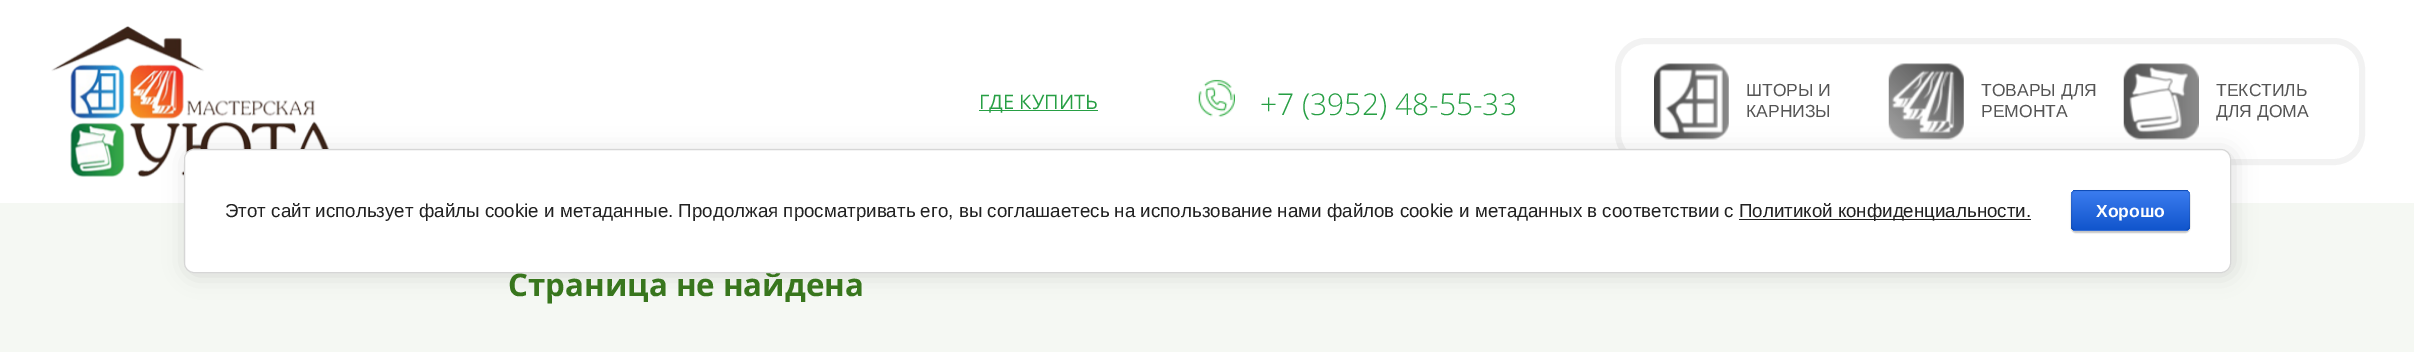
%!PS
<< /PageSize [2414 352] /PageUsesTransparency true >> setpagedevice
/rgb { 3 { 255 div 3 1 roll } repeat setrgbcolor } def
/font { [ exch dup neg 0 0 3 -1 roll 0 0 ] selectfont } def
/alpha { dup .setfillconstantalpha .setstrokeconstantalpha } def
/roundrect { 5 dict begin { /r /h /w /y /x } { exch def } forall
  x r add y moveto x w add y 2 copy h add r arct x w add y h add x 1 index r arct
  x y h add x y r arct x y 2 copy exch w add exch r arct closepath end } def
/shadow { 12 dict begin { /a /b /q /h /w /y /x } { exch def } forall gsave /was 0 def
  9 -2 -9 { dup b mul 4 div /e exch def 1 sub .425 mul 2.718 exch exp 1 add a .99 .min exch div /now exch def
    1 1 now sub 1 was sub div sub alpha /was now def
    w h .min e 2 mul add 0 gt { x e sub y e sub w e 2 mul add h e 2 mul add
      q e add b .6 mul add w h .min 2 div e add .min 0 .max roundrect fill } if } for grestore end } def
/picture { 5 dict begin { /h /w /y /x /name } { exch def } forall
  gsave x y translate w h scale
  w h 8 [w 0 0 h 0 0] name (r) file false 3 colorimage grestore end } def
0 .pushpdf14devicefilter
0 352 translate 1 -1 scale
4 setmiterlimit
245 248 243 rgb
0 0 2414 352 rectfill
255 255 255 rgb
0 0 2414 203 rectfill
(img/1.rgb) 51 26 279 151 picture
39 159 68 rgb
979 110 119 1 rectfill
(img/2.rgb) 1198 79 37 38 picture
242 242 242 rgb
6 setlinewidth
1618 41 744 121 28 roundrect stroke
(img/3.rgb) 1654 63 75 77 picture
(img/4.rgb) 1888 63 76 77 picture
(img/5.rgb) 2123 63 76 77 picture
0 0 0 rgb
186 151 2048 124 10 11 0.14 shadow
/OpenSans-Regular 20 font
39 159 68 rgb
979 109 moveto (ГДЕ КУПИТЬ) show
/OpenSans-Light 30 font
1260 115 moveto (+7 \(3952\) 48-55-33) show
/LiberationSans-Regular 17.5 font
85 85 85 rgb
[
  [(ШТОРЫ И) 1746 96]
  [(КАРНИЗЫ) 1746 117]
  [(ТОВАРЫ ДЛЯ) 1981 96]
  [(РЕМОНТА) 1981 117]
  [(ТЕКСТИЛЬ) 2216 96]
  [(ДЛЯ ДОМА) 2216 117]
] { aload pop moveto show } forall
/OpenSans-Bold 31.25 font
56 118 29 rgb
508 296 moveto (Страница не найдена) show
255 255 255 rgb
184.5 149.5 2046 123 9.5 roundrect gsave fill grestore
214 214 214 rgb
1 setlinewidth
stroke
/LiberationSans-Regular 18.75 font
33 33 33 rgb
225 217 moveto (Этот сайт использует файлы cookie и метаданные. Продолжая просматривать его, вы соглашаетесь на использование нами файлов cookie и метаданных в соответствии с) show
1739 219 292 1 rectfill
1739 217 moveto (Политикой конфиденциальности.) show
0 0 0 rgb
2071 191 119 42 5 0.5 0.2 shadow
gsave
2071 190 119 41 5 roundrect clip newpath
gsave 2071 190 moveto 2190 190 lineto 2190 191 lineto 2071 191 lineto closepath clip newpath
<< /ShadingType 2 /ColorSpace /DeviceRGB /Coords [2131 153 2131 191] /Extend [true true] /Function << /FunctionType 2 /Domain [0 1] /C0 [0.231 0.486 0.937] /C1 [0.067 0.333 0.8] /N 1 >> >> shfill grestore
gsave 2071 191 moveto 2190 191 lineto 2190 230 lineto 2071 230 lineto closepath clip newpath
<< /ShadingType 2 /ColorSpace /DeviceRGB /Coords [2131 191 2131 230] /Extend [true true] /Function << /FunctionType 2 /Domain [0 1] /C0 [0.231 0.486 0.937] /C1 [0.067 0.333 0.8] /N 1 >> >> shfill grestore
gsave 2071 230 moveto 2190 230 lineto 2190 231 lineto 2071 231 lineto closepath clip newpath
<< /ShadingType 2 /ColorSpace /DeviceRGB /Coords [2131 230 2131 269] /Extend [true true] /Function << /FunctionType 2 /Domain [0 1] /C0 [0.231 0.486 0.937] /C1 [0.067 0.333 0.8] /N 1 >> >> shfill grestore
grestore
0.1 alpha
2071.5 190.5 118 40 4.5 roundrect stroke
/LiberationSans-Bold 17.5 font
1 alpha
255 255 255 rgb
2096 217 moveto (Хорошо) show
.poppdf14devicefilter showpage
